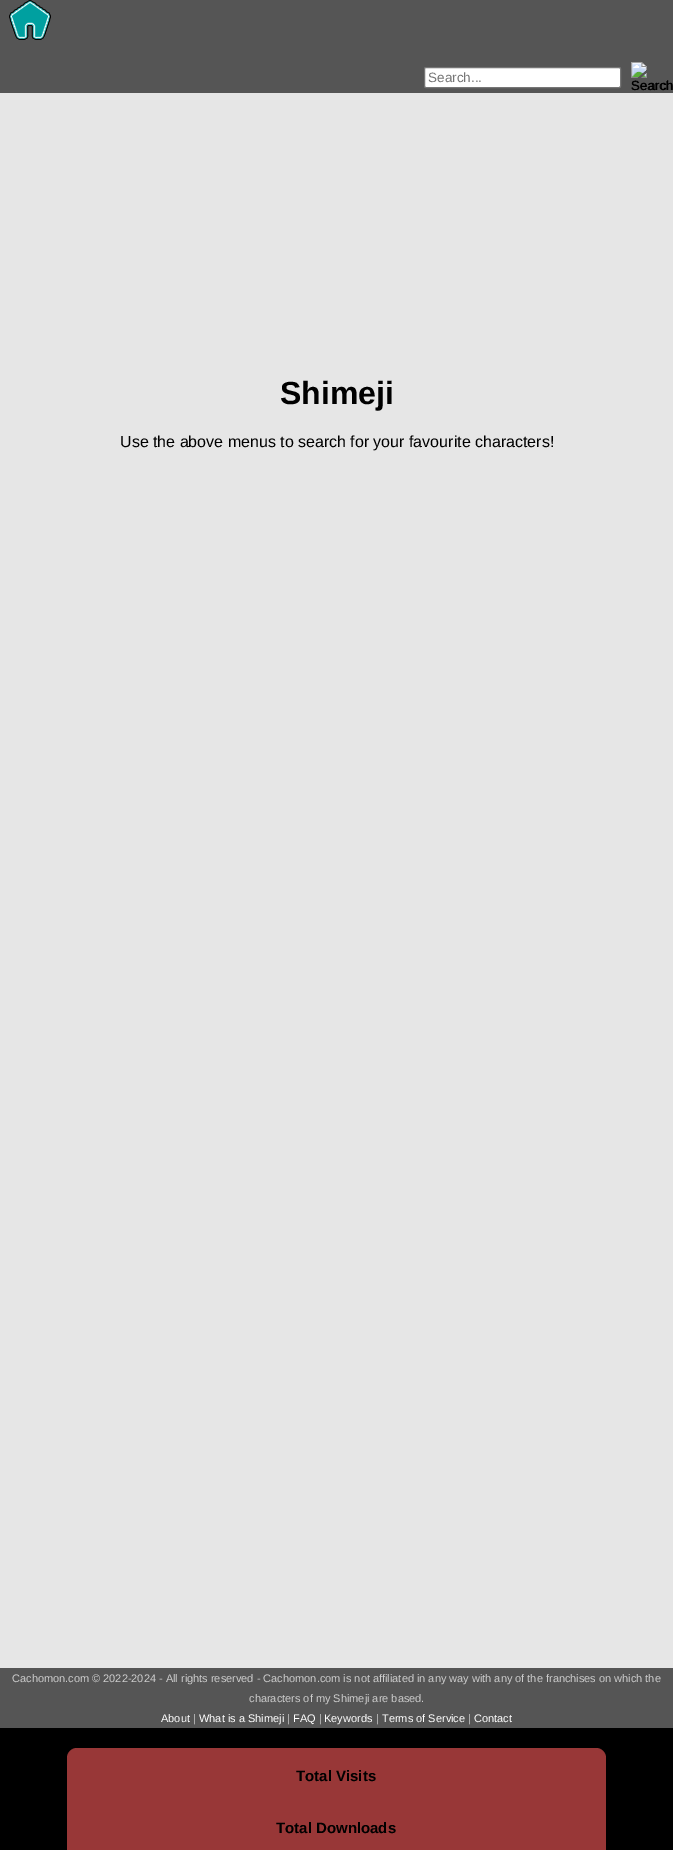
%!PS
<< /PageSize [673 1850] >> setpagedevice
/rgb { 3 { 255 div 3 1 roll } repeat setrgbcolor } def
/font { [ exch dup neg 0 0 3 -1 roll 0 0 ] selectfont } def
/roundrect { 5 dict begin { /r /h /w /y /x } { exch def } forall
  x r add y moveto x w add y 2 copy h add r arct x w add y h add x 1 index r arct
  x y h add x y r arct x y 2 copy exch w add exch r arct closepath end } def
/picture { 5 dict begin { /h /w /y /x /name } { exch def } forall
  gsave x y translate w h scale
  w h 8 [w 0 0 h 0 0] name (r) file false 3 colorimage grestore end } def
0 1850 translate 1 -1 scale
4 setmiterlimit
230 230 230 rgb
0 0 673 1850 rectfill
85 85 85 rgb
0 0 673 93 rectfill
(img/1.rgb) 9 0 42 40 picture
255 255 255 rgb
424.5 67.5 196 20 1.5 roundrect gsave fill grestore
118 118 118 rgb
stroke
(img/2.rgb) 631 62 41 28 picture
85 85 85 rgb
0 1668 673 60 rectfill
0 0 0 rgb
0 1728 673 122 rectfill
152 55 55 rgb
67 1748 539 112 10 roundrect fill
/LiberationSans-Regular 13.5 font
117 117 117 rgb
428 82 moveto (Search...) show
0 0 0 rgb
631 90 moveto (Search) show
/LiberationSans-Bold 32 font
280 404 moveto (Shimeji) show
/LiberationSans-Regular 16 font
120 447 moveto (Use the above menus to search for your favourite characters!) show
/LiberationSans-Regular 11 font
204 204 204 rgb
12 1682 moveto (Cachomon.com © 2022-2024 - All rights reserved - Cachomon.com is not affiliated in any way with any of the franchises on which the) show
249 1702 moveto (characters of my Shimeji are based.) show
255 255 255 rgb
161 1722 moveto (About) show
204 204 204 rgb
193 1722 moveto (|) show
255 255 255 rgb
199 1722 moveto (What is a Shimeji) show
204 204 204 rgb
287 1722 moveto (|) show
255 255 255 rgb
293 1722 moveto (FAQ) show
204 204 204 rgb
319 1722 moveto (|) show
255 255 255 rgb
324 1722 moveto (Keywords) show
204 204 204 rgb
376 1722 moveto (|) show
255 255 255 rgb
382 1722 moveto (Terms of Service) show
204 204 204 rgb
468 1722 moveto (|) show
255 255 255 rgb
474 1722 moveto (Contact) show
/LiberationSans-Bold 15 font
0 0 0 rgb
296 1781 moveto (Total Visits) show
276 1833 moveto (Total Downloads) show
showpage
